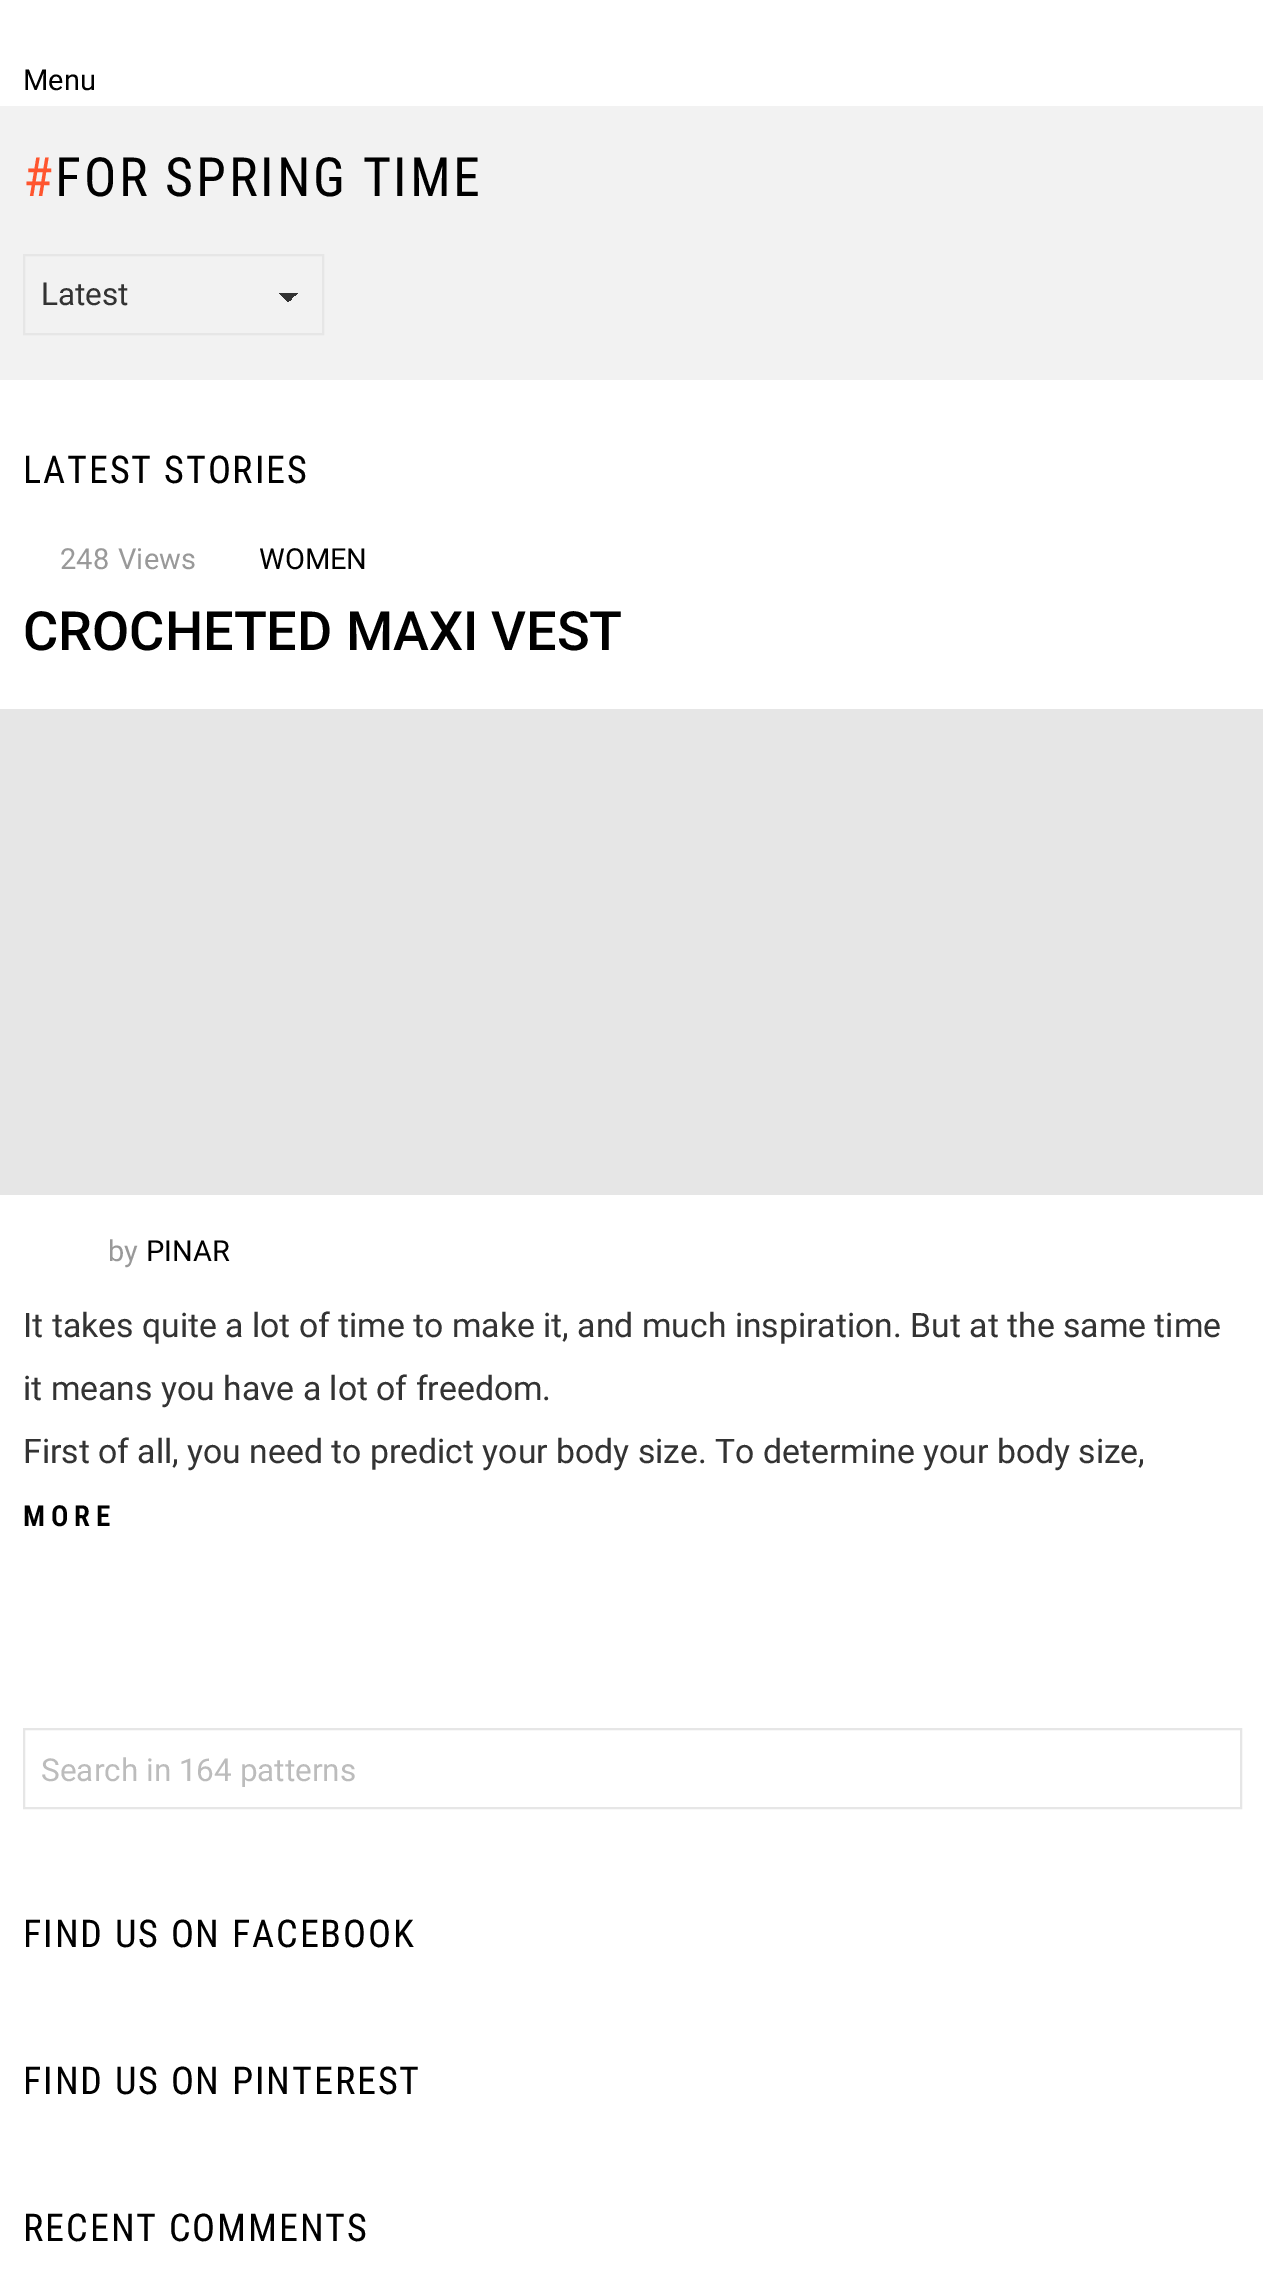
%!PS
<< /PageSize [1263 2294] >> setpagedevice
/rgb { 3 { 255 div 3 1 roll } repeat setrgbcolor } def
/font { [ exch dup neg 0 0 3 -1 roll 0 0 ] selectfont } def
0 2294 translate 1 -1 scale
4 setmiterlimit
255 255 255 rgb
0 0 1263 2294 rectfill
242 242 242 rgb
0 106 1263 274 rectfill
gsave 288 293 moveto 298 293 lineto 298 302 lineto 288 302 lineto closepath clip newpath
<< /ShadingType 2 /ColorSpace /DeviceRGB /Coords [289 292 299 302] /Extend [true true] /Function << /FunctionType 3 /Domain [0 1] /Functions [<< /FunctionType 2 /Domain [0 1] /C0 [0.2 0.2 0.2] /C1 [0.2 0.2 0.2] /N 1 >> << /FunctionType 2 /Domain [0 1] /C0 [0.949 0.949 0.949] /C1 [0.949 0.949 0.949] /N 1 >>] /Bounds [0.5] /Encode [0 1 0 1] >> >> shfill grestore
gsave 279 293 moveto 288 293 lineto 288 302 lineto 279 302 lineto closepath clip newpath
<< /ShadingType 2 /ColorSpace /DeviceRGB /Coords [277 302 287 292] /Extend [true true] /Function << /FunctionType 3 /Domain [0 1] /Functions [<< /FunctionType 2 /Domain [0 1] /C0 [0.949 0.949 0.949] /C1 [0.949 0.949 0.949] /N 1 >> << /FunctionType 2 /Domain [0 1] /C0 [0.2 0.2 0.2] /C1 [0.2 0.2 0.2] /N 1 >>] /Bounds [0.5] /Encode [0 1 0 1] >> >> shfill grestore
230 230 230 rgb
2 setlinewidth
24 255 299 79 rectstroke
0 709 1263 486 rectfill
24 1729 1217 79 rectstroke
/Roboto-Regular 29 font
0 0 0 rgb
23 90 moveto (Menu) show
/RobotoCondensed-Regular 54 font
255 85 46 rgb
23 196 moveto 2.75 0 (#) ashow
0 0 0 rgb
55 196 moveto 2.75 0 (FOR SPRING TIME) ashow
/Roboto-Regular 31.5 font
51 51 51 rgb
41 305 moveto (Latest) show
/RobotoCondensed-Regular 38.25 font
0 0 0 rgb
23 483 moveto 1.9 0 (LATEST STORIES) ashow
/Roboto-Regular 29 font
153 153 153 rgb
60 569 moveto (248) show
118 569 moveto (Views) show
0 0 0 rgb
259 569 moveto (WOMEN) show
/Roboto-Medium 54 font
23 650 moveto (CROCHETED MAXI VEST) show
/Roboto-Regular 29 font
153 153 153 rgb
108 1261 moveto (by) show
0 0 0 rgb
146 1261 moveto (PINAR) show
/Roboto-Regular 33.75 font
51 51 51 rgb
[
  [(It takes quite a lot of time to make it, and much inspiration. But at the same time) 23 1337]
  [(it means you have a lot of freedom.) 23 1400]
  [(First of all, you need to predict your body size. To determine your body size,) 23 1463]
] { aload pop moveto show } forall
/RobotoCondensed-SemiBold 29 font
0 0 0 rgb
23 1526 moveto 6 0 (MORE) ashow
gsave
41 1751 1075 36 rectclip
/Roboto-Regular 31.5 font
188 188 188 rgb
41 1781 moveto (Search in 164 patterns) show
grestore
/RobotoCondensed-Regular 38.25 font
23 1947 moveto 1.9 0 (FIND US ON FACEBOOK) ashow
23 2094 moveto 1.9 0 (FIND US ON PINTEREST) ashow
23 2241 moveto 1.9 0 (RECENT COMMENTS) ashow
showpage
